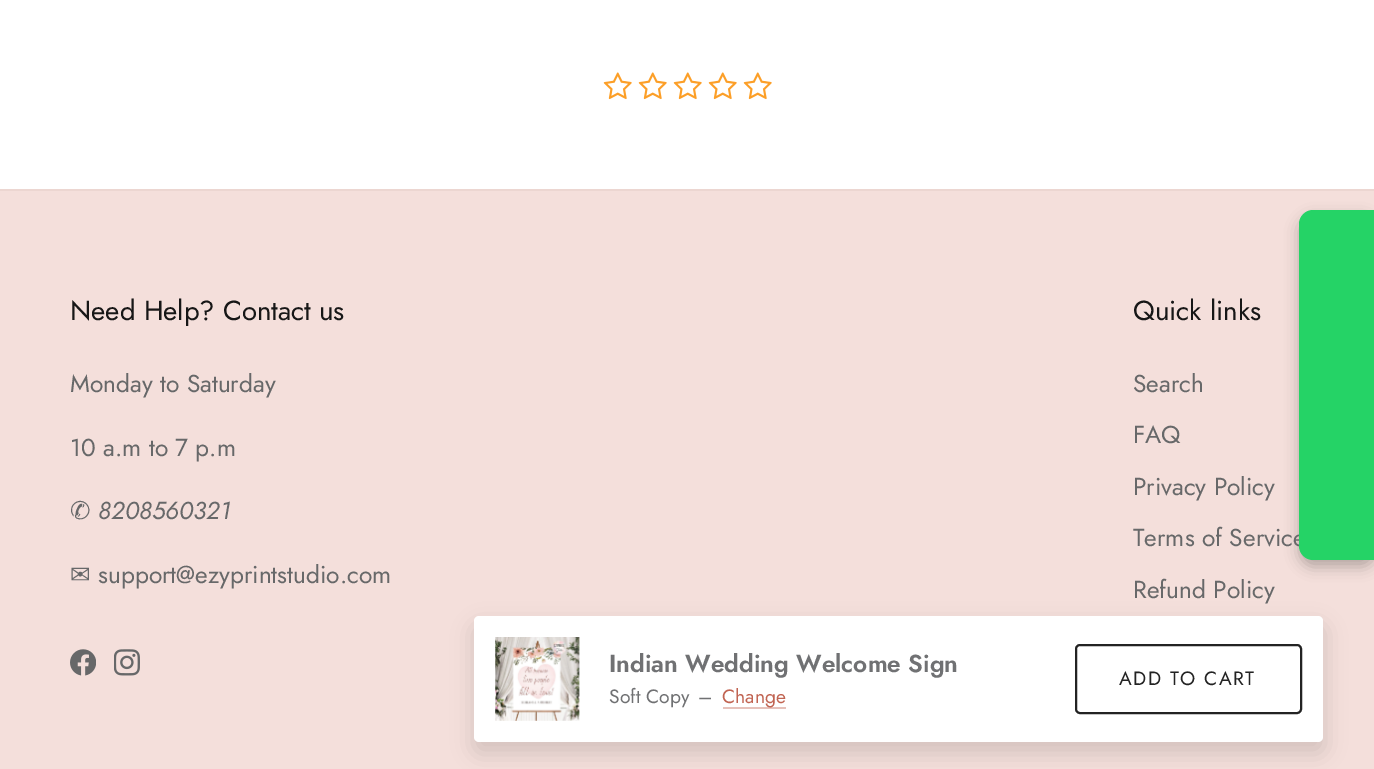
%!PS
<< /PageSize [1374 769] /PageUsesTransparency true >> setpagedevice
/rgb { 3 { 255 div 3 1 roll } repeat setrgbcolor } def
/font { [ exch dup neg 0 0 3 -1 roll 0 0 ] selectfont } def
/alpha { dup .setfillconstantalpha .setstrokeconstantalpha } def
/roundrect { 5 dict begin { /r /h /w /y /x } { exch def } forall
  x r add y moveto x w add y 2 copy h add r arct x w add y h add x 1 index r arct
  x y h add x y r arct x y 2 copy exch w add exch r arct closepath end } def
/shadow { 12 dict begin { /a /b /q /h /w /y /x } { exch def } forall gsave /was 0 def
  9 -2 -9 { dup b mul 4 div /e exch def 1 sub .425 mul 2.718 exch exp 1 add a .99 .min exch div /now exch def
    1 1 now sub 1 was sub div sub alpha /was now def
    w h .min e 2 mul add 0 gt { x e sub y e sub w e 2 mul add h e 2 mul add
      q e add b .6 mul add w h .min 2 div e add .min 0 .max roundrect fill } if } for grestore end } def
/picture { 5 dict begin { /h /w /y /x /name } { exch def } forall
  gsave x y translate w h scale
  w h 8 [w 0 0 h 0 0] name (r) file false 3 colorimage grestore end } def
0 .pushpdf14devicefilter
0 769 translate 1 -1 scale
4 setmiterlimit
255 255 255 rgb
0 0 1374 769 rectfill
244 223 219 rgb
0 191 1374 578 rectfill
236 214 209 rgb
0 189 1374 2 rectfill
(img/1.rgb) 70 649 26 27 picture
(img/2.rgb) 114 649 26 27 picture
0 0 0 rgb
1299 217 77 350 14 7 0.25 shadow
(img/3.rgb) 603 72 29 28 picture
(img/3.rgb) 638 72 29 28 picture
(img/3.rgb) 673 72 29 28 picture
(img/3.rgb) 708 72 29 28 picture
(img/3.rgb) 743 72 29 28 picture
473 625 852 129 7 10.5 0.12 shadow
255 255 255 rgb
474 616 849 126 5 roundrect fill
(img/4.rgb) 495 637 85 84 picture
230 193 186 rgb
723 707 63 2 rectfill
35 35 35 rgb
2 setlinewidth
1076 645 225 68 4 roundrect stroke
/Jost-Regular 27.5 font
23 23 23 rgb
70 320 moveto (Need Help? Contact us) show
/Jost-Regular 24.5 font
103 104 105 rgb
70 392 moveto (Monday to Saturday) show
70 456 moveto (10 a.m to 7 p.m) show
/DejaVuSans-Regular 24.5 font
70 519 moveto (✆) show
/Jost-Italic 24.5 font
98 519 moveto (8208560321) show
/DejaVuSans-Regular 24.5 font
70 583 moveto (✉) show
/Jost-Regular 24.5 font
98 583 moveto (support@ezyprintstudio.com) show
/Jost-Regular 27.5 font
23 23 23 rgb
1133 320 moveto (Quick links) show
/Jost-Regular 24.5 font
103 104 105 rgb
[
  [(Search) 1133 392]
  [(FAQ) 1133 443]
  [(Privacy Policy) 1133 495]
  [(Terms of Service) 1133 546]
  [(Refund Policy) 1133 598]
] { aload pop moveto show } forall
37 211 102 rgb
1313 210 moveto 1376 210 lineto 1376 560 lineto 1313 560 lineto 1305.5 560 1299 553.5 1299 546 curveto 1299 224 lineto 1299 216.5 1305.5 210 1313 210 curveto closepath fill
/Jost-SemiBold 24.5 font
112 113 115 rgb
609 672 moveto (Indian Wedding Welcome Sign) show
/Jost-Regular 19.25 font
609 703 moveto (Soft Copy) show
698 703 moveto (–) show
193 100 82 rgb
722 703 moveto (Change) show
35 35 35 rgb
1119 685 moveto 1.5 0 (ADD TO CART) ashow
.poppdf14devicefilter showpage
